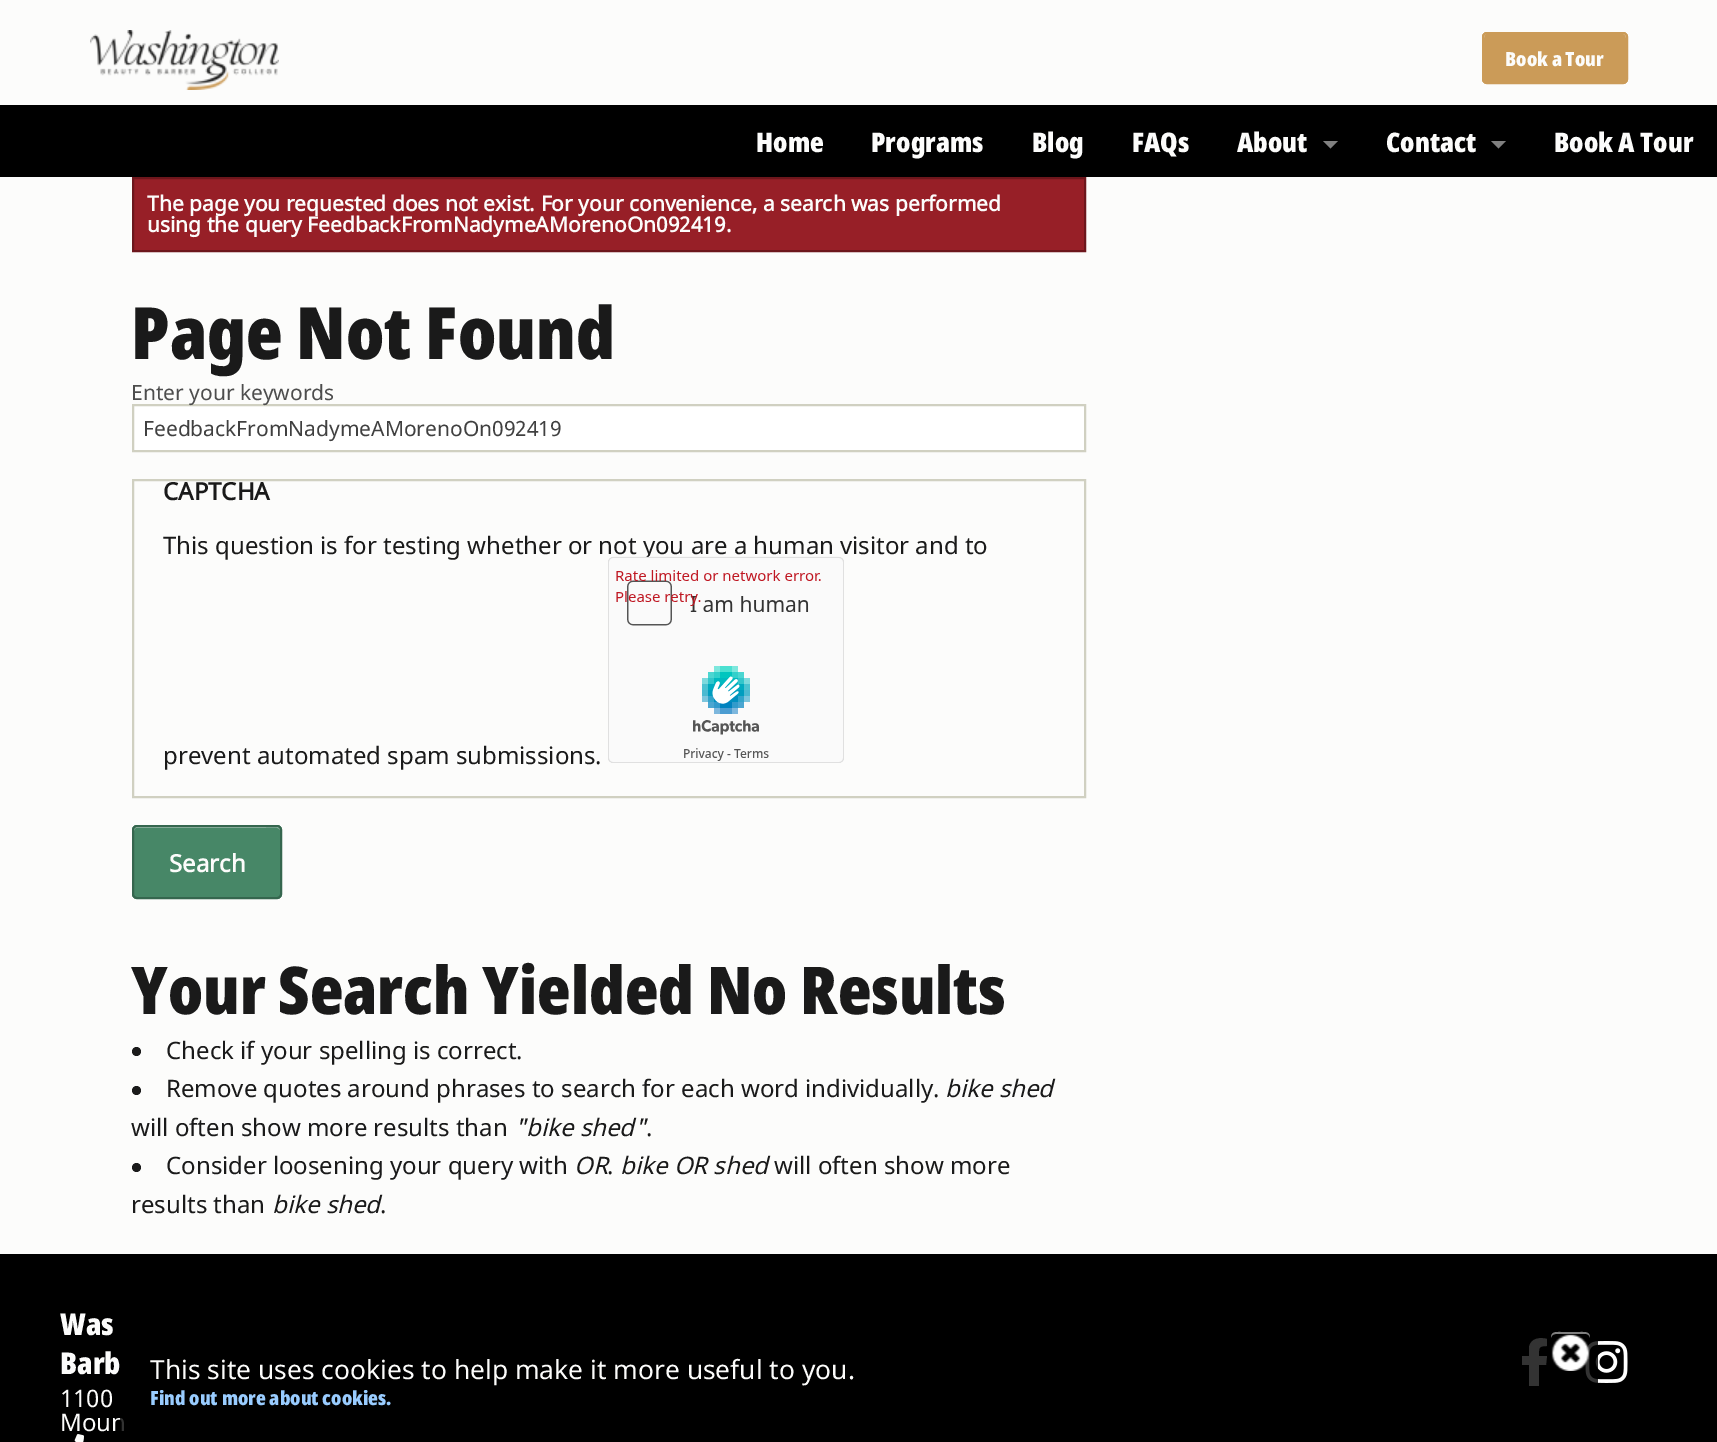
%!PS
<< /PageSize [1717 1442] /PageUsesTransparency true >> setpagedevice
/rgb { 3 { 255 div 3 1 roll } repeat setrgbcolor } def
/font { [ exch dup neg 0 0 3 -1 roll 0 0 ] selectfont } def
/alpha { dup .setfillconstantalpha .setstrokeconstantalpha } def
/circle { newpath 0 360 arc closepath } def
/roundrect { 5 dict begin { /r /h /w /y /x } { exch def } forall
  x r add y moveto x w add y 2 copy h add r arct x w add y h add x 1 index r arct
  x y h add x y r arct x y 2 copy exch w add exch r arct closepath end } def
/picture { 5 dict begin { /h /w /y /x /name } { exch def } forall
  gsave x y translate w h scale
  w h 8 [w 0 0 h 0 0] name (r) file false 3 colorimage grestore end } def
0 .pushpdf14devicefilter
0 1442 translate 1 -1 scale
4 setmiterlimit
252 252 251 rgb
0 0 1717 1442 rectfill
(img/1.rgb) 90 30 189 60 picture
203 155 88 rgb
1482 32 146 52 5 roundrect fill
229 205 172 rgb
1486 34 moveto 1623 34 lineto 1625 34 1626 36 1626 38 curveto 1626 36 lineto 1626 34 1625 33 1623 33 curveto 1487 33 lineto 1485 33 1484 34 1484 36 curveto 1484 38 lineto 1484 36 1485 34 1486 34 curveto closepath fill
203 155 88 rgb
2 setlinewidth
1483 33 144 50 4 roundrect stroke
0 0 0 rgb
0 105 1717 72 rectfill
128 128 128 rgb
1323 141 moveto 1338 141 lineto 1330.5 148.5 lineto closepath fill
1491 141 moveto 1506 141 lineto 1498.5 148.5 lineto closepath fill
151 31 39 rgb
133 178 moveto 1085 178 lineto 1085 251 lineto 133 251 lineto closepath gsave fill grestore
109 22 28 rgb
stroke
255 255 255 rgb
133 405 moveto 1085 405 lineto 1085 451 lineto 133 451 lineto closepath gsave fill grestore
208 208 193 rgb
stroke
133 480 952 317 rectstroke
71 135 103 rgb
132 825 150 74 5 roundrect fill
163 195 179 rgb
136 828 moveto 254 828 lineto 287 828 280 822 280 853 curveto 280 896 lineto 281 896 281 895 281 894 curveto 281 830 lineto 281 828 280 827 278 827 curveto 137 827 lineto 135 827 134 828 134 830 curveto 134 831 lineto 134 829 135 828 136 828 curveto closepath fill
53 102 78 rgb
133 826 148 72 4 roundrect stroke
26 26 26 rgb
136.5 1051.5 4.5 circle fill
136.5 1090.5 4.5 circle fill
136.5 1167.5 4.5 circle fill
0 0 0 rgb
0 1254 1717 188 rectfill
(img/3.rgb) 74 1434 10 8 picture
255 255 255 rgb
1546 1365 moveto 1547 1356 lineto 1539 1356 lineto 1539 1348 1538 1346 1547 1346 curveto 1547 1339 lineto 1540 1337 1531 1338 1529 1347 curveto 1529 1356 lineto 1522 1356 lineto 1522 1365 lineto 1529 1365 lineto 1529 1386 lineto 1539 1386 lineto 1539 1365 lineto closepath fill
(img/4.rgb) 1585 1341 43 42 picture
/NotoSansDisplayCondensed-Black 19.5 font
252 252 251 rgb
1505 66 moveto (Book a Tour) show
/NotoSansDisplayCondensed-Black 27 font
[
  [(Home) 756 152]
  [(Programs) 871 152]
  [(Blog) 1032 152]
  [(FAQs) 1132 152]
  [(About) 1237 152]
  [(Contact) 1386 152]
  [(Book A Tour) 1554 152]
] { aload pop moveto show } forall
/NotoSans-Bold 21 font
147 211 moveto (The page you requested does not exist. For your convenience, a search was performed) show
147 232 moveto (using the query FeedbackFromNadymeAMorenoOn092419.) show
/NotoSansDisplayCondensed-Black 72 font
26 26 26 rgb
131 359 moveto (Page Not Found) show
/NotoSans-Regular 21 font
77 77 77 rgb
131 400 moveto (Enter your keywords) show
64 64 64 rgb
143 436 moveto (FeedbackFromNadymeAMorenoOn092419) show
/NotoSans-Bold 24 font
26 26 26 rgb
163 500 moveto (CAPTCHA) show
/NotoSans-Regular 24 font
163 554 moveto (This question is for testing whether or not you are a human visitor and to) show
163 764 moveto (prevent automated spam submissions.) show
(img/2.rgb) 608 556 236 207 picture
/NotoSans-Bold 24 font
252 252 251 rgb
169 872 moveto (Search) show
/NotoSansDisplayCondensed-Black 66 font
26 26 26 rgb
131 1014 moveto (Your Search Yielded No Results) show
/NotoSans-Regular 24 font
166 1059 moveto (Check if your spelling is correct.) show
166 1097 moveto (Remove quotes around phrases to search for each word individually.) show
/NotoSans-Italic 24 font
945 1097 moveto (bike shed) show
/NotoSans-Regular 24 font
131 1136 moveto (will often show more results than) show
/NotoSans-Italic 24 font
514 1136 moveto ("bike shed") show
/NotoSans-Regular 24 font
646 1136 moveto (.) show
166 1174 moveto (Consider loosening your query with) show
/NotoSans-Italic 24 font
574 1174 moveto (OR) show
620 1174 moveto (bike OR shed) show
/NotoSans-Regular 24 font
[
  [(will often show more) 774 1174]
  [(.) 607 1174]
  [(results than) 131 1213]
] { aload pop moveto show } forall
/NotoSans-Italic 24 font
272 1213 moveto (bike shed) show
/NotoSans-Regular 24 font
380 1213 moveto (.) show
/NotoSansDisplayCondensed-Black 30 font
252 252 251 rgb
60 1335 moveto (Was) show
60 1374 moveto (Barb) show
/NotoSans-Regular 24 font
60 1407 moveto (1100) show
60 1431 moveto (Moun) show
0.8 alpha
0 0 0 rgb
120 1338 1478 93 rectfill
1 alpha
(img/5.rgb) 1551 1334 39 37 picture
128 128 128 rgb
1556 1334 moveto 1586 1334 lineto 1588 1334 1590 1336 1590 1338 curveto 1590 1331.5 1585.5 1332 1580 1332 curveto 1561 1332 lineto 1555.5 1332 1551 1331.5 1551 1338 curveto 1551 1336 1553 1334 1556 1334 curveto closepath fill
/NotoSans-Regular 26.4 font
252 252 251 rgb
150 1379 moveto (This site uses cookies to help make it more useful to you.) show
/NotoSansDisplayCondensed-Black 19.5 font
153 204 255 rgb
150 1405 moveto (Find out more about cookies.) show
.poppdf14devicefilter showpage
